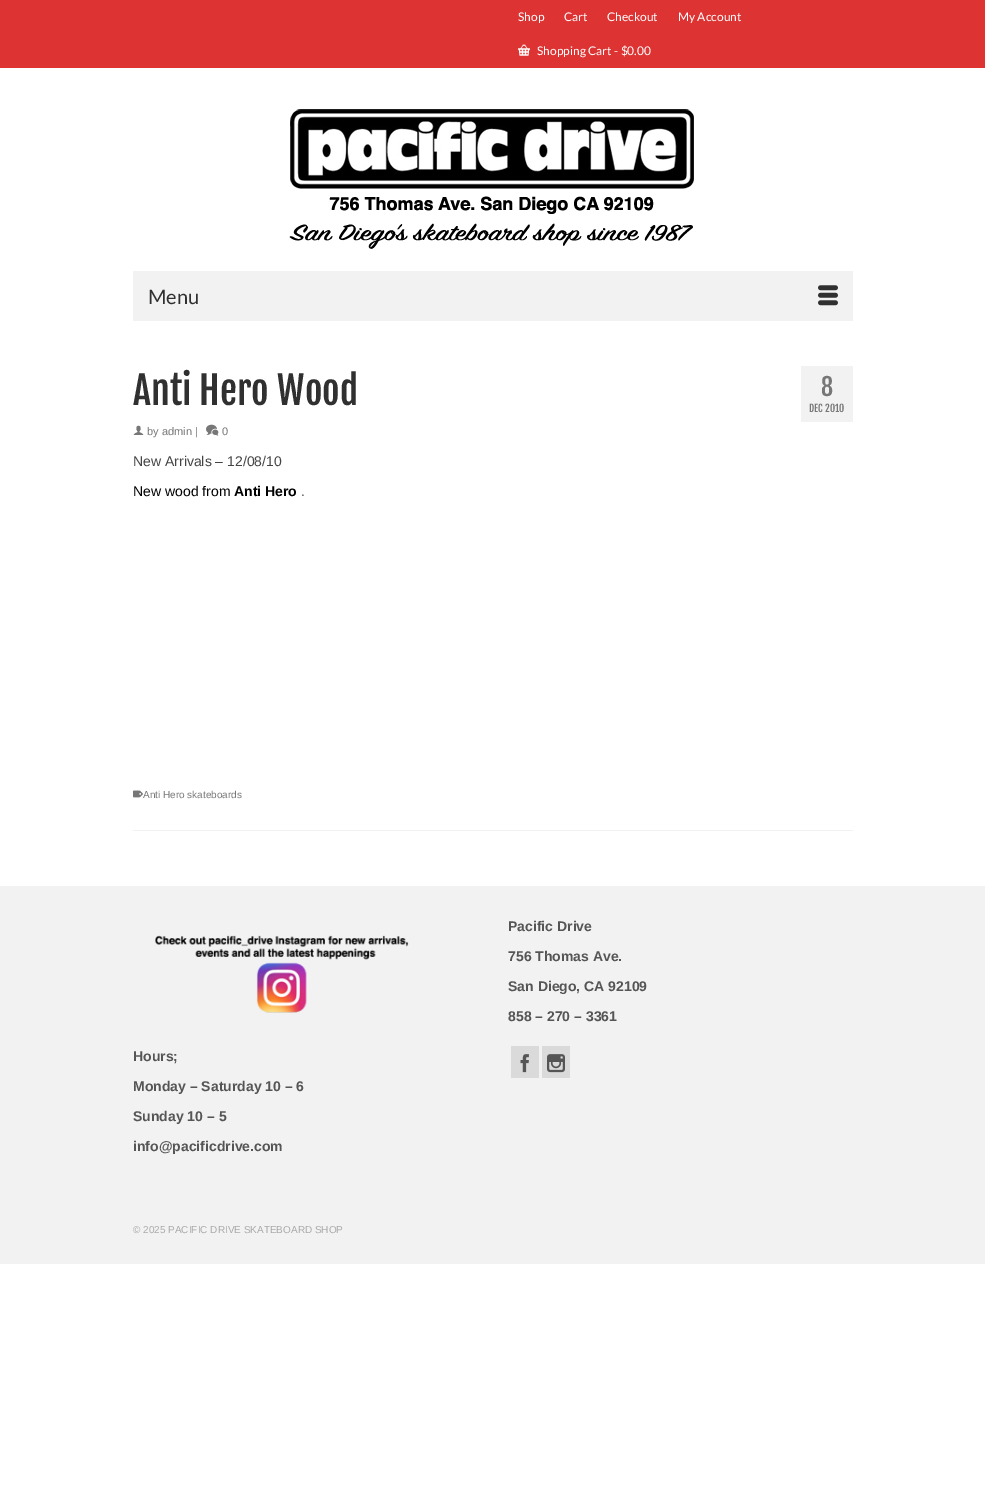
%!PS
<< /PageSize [985 1487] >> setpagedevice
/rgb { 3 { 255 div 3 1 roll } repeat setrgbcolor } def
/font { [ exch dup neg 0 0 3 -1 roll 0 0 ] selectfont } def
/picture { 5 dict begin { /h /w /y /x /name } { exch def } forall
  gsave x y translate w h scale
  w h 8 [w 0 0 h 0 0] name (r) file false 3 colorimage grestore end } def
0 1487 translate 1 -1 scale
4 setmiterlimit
255 255 255 rgb
0 0 985 1487 rectfill
221 51 51 rgb
0 0 985 68 rectfill
(img/1.rgb) 518 44 12 12 picture
(img/2.rgb) 289 109 405 140 picture
242 242 242 rgb
133 271 720 50 rectfill
(img/3.rgb) 818 285 20 21 picture
(img/4.rgb) 133 425 11 10 picture
(img/5.rgb) 206 424 13 12 picture
801 366 52 56 rectfill
133 830 720 1 rectfill
(img/6.rgb) 133 790 10 8 picture
0 886 985 378 rectfill
(img/7.rgb) 155 935 254 78 picture
218 218 218 rgb
511 1046 28 32 rectfill
(img/8.rgb) 520 1054 9 19 picture
542 1046 28 32 rectfill
(img/9.rgb) 547 1054 18 19 picture
/Lato-Regular 12 font
255 255 255 rgb
[
  [(Shop) 518 21]
  [(Cart) 564 21]
  [(Checkout) 607 21]
  [(My Account) 678 21]
  [(Shopping Cart - $0.00) 537 55]
] { aload pop moveto show } forall
/Lato-Regular 20 font
48 48 48 rgb
148 304 moveto (Menu) show
/FjallaOne-Regular 38 font
133 405 moveto (Anti Hero Wood) show
/LiberationSans-Regular 11 font
119 119 119 rgb
147 435 moveto (by admin |) show
222 435 moveto (0) show
/FjallaOne-Regular 24 font
821 396 moveto (8) show
/FjallaOne-Regular 10 font
809 412 moveto (DEC 2010) show
/LiberationSans-Regular 14 font
68 68 68 rgb
133 466 moveto (New Arrivals – 12/08/10) show
0 0 0 rgb
133 496 moveto (New wood from) show
/LiberationSans-Bold 14 font
234 496 moveto (Anti Hero) show
/LiberationSans-Regular 14 font
68 68 68 rgb
301 496 moveto (.) show
/LiberationSans-Regular 10 font
119 119 119 rgb
143 798 moveto (Anti Hero skateboards) show
/LiberationSans-Bold 14 font
85 85 85 rgb
[
  [(Pacific Drive) 508 931]
  [(756 Thomas Ave.) 508 961]
  [(San Diego, CA 92109) 508 991]
  [(858 – 270 – 3361) 508 1021]
  [(Hours;) 133 1061]
  [(Monday – Saturday 10 – 6) 133 1091]
  [(Sunday 10 – 5) 133 1121]
  [(info@pacificdrive.com) 133 1151]
] { aload pop moveto show } forall
/LiberationSans-Regular 10 font
170 170 170 rgb
133 1233 moveto (© 2025 PACIFIC DRIVE SKATEBOARD SHOP) show
showpage
